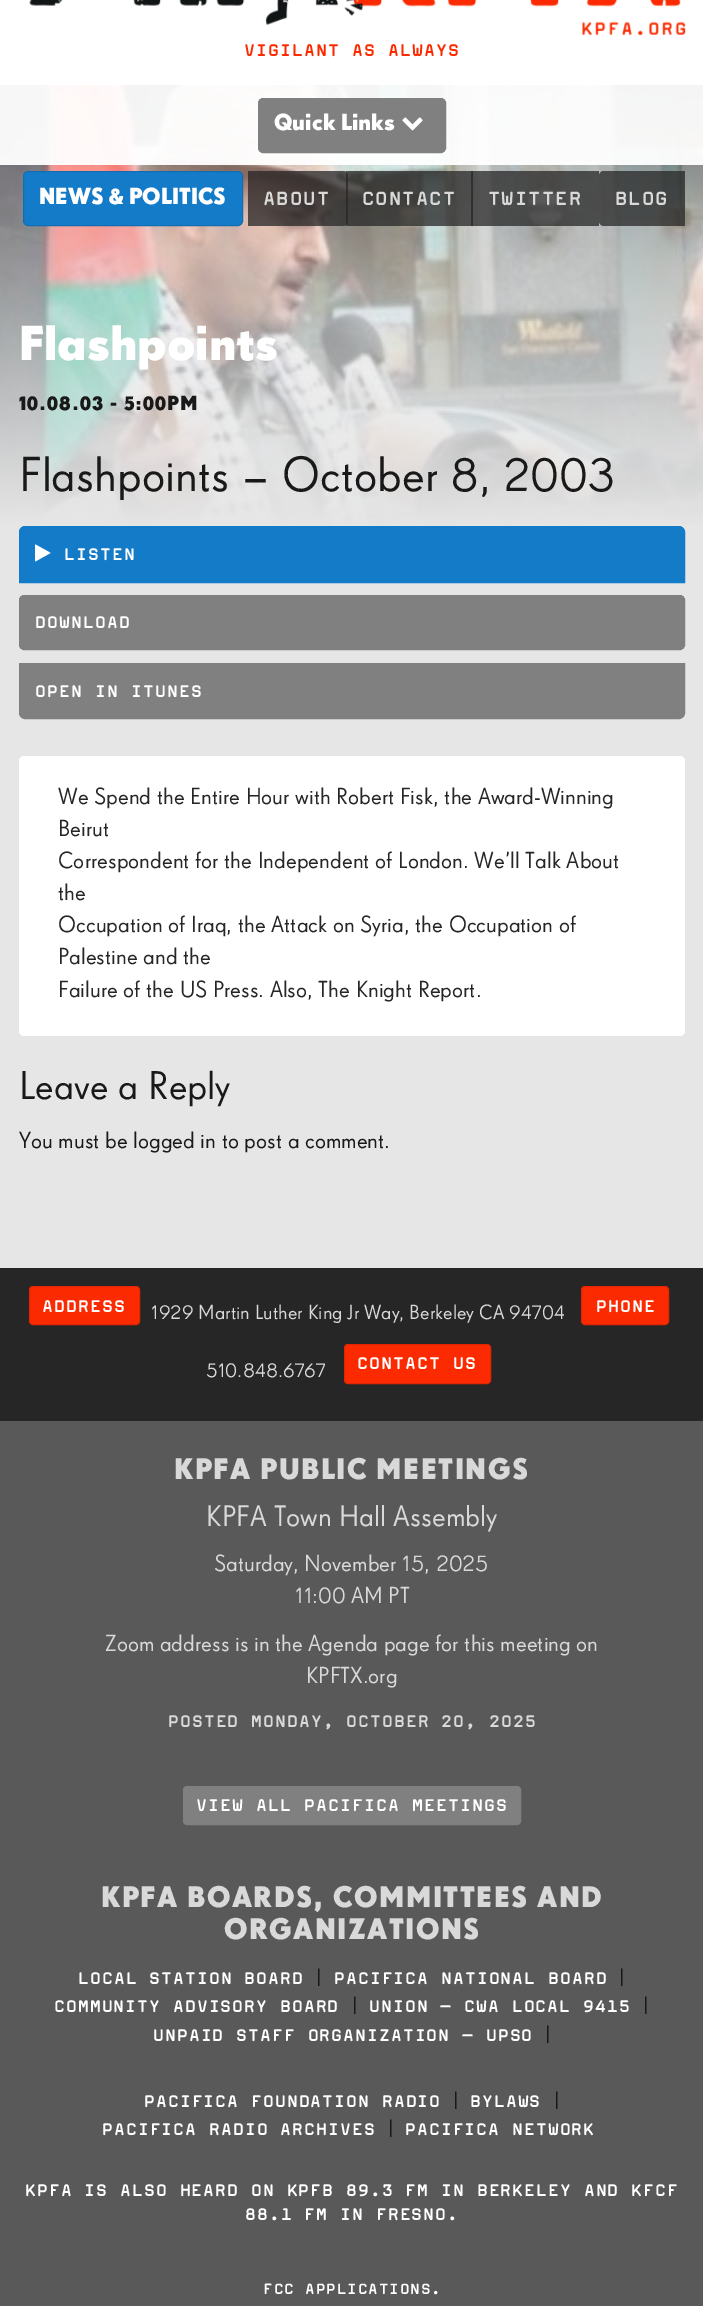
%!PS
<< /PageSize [703 2306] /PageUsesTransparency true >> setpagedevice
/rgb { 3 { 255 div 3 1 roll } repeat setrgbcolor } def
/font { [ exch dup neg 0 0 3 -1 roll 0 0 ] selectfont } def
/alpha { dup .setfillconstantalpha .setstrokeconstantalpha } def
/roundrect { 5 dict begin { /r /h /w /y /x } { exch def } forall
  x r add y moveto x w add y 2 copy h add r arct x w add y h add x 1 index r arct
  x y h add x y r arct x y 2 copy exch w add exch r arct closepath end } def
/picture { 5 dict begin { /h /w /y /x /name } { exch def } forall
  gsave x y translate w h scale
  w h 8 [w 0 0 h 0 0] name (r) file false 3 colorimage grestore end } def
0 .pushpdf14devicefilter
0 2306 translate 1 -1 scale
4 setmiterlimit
230 230 230 rgb
0 0 703 2306 rectfill
255 255 255 rgb
0 0 703 85 rectfill
(img/1.rgb) 29 0 657 35 picture
(img/2.rgb) 0 85 703 440 picture
0.95 alpha
0 85 703 80 rectfill
1 alpha
128 128 128 rgb
258.5 98.5 187 54 4.5 roundrect gsave fill grestore
stroke
(img/3.rgb) 402 117 21 14 picture
20 123 201 rgb
23.5 171.5 219 54 4.5 roundrect gsave fill grestore
18 109 178 rgb
stroke
0.75 alpha
38 38 38 rgb
471 171 128 55 rectfill
346 171 127 55 rectfill
248 171 moveto 343 171 lineto 346 171 348 173 348 176 curveto 348 221 lineto 348 224 346 226 343 226 curveto 248 226 lineto closepath fill
604 171 moveto 685 171 lineto 685 226 lineto 604 226 lineto 601 226 599 224 599 221 curveto 599 176 lineto 599 173 601 171 604 171 curveto closepath fill
1 alpha
20 123 201 rgb
25 526.5 moveto 679 526.5 lineto 682 526.5 684.5 529 684.5 532 curveto 684.5 582.5 lineto 19.5 582.5 lineto 19.5 532 lineto 19.5 529 22 526.5 25 526.5 curveto closepath gsave fill grestore
stroke
(img/4.rgb) 35 544 16 18 picture
128 128 128 rgb
19.5 595.5 665 54 4.5 roundrect gsave fill grestore
stroke
19.5 663.5 moveto 684.5 663.5 lineto 684.5 713 lineto 684.5 716 682 718.5 679 718.5 curveto 25 718.5 lineto 22 718.5 19.5 716 19.5 713 curveto closepath gsave fill grestore
stroke
255 255 255 rgb
19 756 666 280 5 roundrect fill
38 38 38 rgb
0 1268 703 153 rectfill
252 42 0 rgb
29.5 1286.5 110 38 3.5 roundrect gsave fill grestore
227 38 0 rgb
stroke
252 42 0 rgb
581.5 1286.5 87 38 3.5 roundrect gsave fill grestore
227 38 0 rgb
stroke
252 42 0 rgb
344.5 1344.5 146 39 3.5 roundrect gsave fill grestore
227 38 0 rgb
stroke
89 89 89 rgb
0 1421 703 885 rectfill
128 128 128 rgb
183.5 1786.5 337 38 3.5 roundrect gsave fill grestore
stroke
/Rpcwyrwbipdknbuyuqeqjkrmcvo-Bold 20 font
252 42 0 rgb
244 56 moveto 1 0 (VIGILANT AS ALWAYS) ashow
/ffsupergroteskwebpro-Bold 22.5 font
255 255 255 rgb
274 130 moveto (Quick Links) show
39 204 moveto (NEWS & POLITICS) show
/Rpcwyrwbipdknbuyuqeqjkrmcvo-Bold 22.5 font
217 217 217 rgb
263 205 moveto 1.1 0 (ABOUT) ashow
362 205 moveto 1.1 0 (CONTACT) ashow
488 205 moveto 1.1 0 (TWITTER) ashow
615 205 moveto 1.1 0 (BLOG) ashow
/ffsupergroteskwebpro-Bold 47.5 font
255 255 255 rgb
19 360 moveto (Flashpoints) show
/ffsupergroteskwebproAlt-Bold 19.8 font
25 25 25 rgb
19 410 moveto 1 0 (10.08.03 - 5:00PM) ashow
/ffsupergroteskwebproAlt-Regular 47.5 font
19 491 moveto (Flashpoints – October 8, 2003) show
/Rpcwyrwbipdknbuyuqeqjkrmcvo-Bold 19.8 font
255 255 255 rgb
64 560 moveto 1.1 0 (LISTEN) ashow
35 628 moveto 1.1 0 (DOWNLOAD) ashow
35 697 moveto 1.1 0 (OPEN IN ITUNES) ashow
/ffsupergroteskwebpro-Regular 22.5 font
38 38 38 rgb
[
  [(We Spend the Entire Hour with Robert Fisk, the Award-Winning) 58 804]
  [(Beirut) 58 836]
  [(Correspondent for the Independent of London. We’ll Talk About) 58 868]
  [(the) 58 900]
  [(Occupation of Iraq, the Attack on Syria, the Occupation of) 58 932]
  [(Palestine and the) 58 964]
  [(Failure of the US Press. Also, The Knight Report.) 58 997]
] { aload pop moveto show } forall
/ffsupergroteskwebpro-Regular 38.75 font
25 25 25 rgb
19 1099 moveto (Leave a Reply) show
/ffsupergroteskwebpro-Regular 22.5 font
19 1148 moveto (You must be logged in to post a comment.) show
/Rpcwyrwbipdknbuyuqeqjkrmcvo-Bold 20 font
255 255 255 rgb
42 1312 moveto 1 0 (ADDRESS) ashow
/ffsupergroteskwebproAlt-Regular 19.8 font
217 217 217 rgb
151 1319 moveto (1929 Martin Luther King Jr Way, Berkeley CA 94704) show
/Rpcwyrwbipdknbuyuqeqjkrmcvo-Bold 20 font
255 255 255 rgb
596 1312 moveto 1 0 (PHONE) ashow
/ffsupergroteskwebproAlt-Regular 19.8 font
217 217 217 rgb
206 1377 moveto (510.848.6767) show
/Rpcwyrwbipdknbuyuqeqjkrmcvo-Bold 20 font
255 255 255 rgb
357 1369 moveto 1 0 (CONTACT US) ashow
/ffsupergroteskwebpro-Bold 28.75 font
217 217 217 rgb
174 1479 moveto 1.45 0 (KPFA PUBLIC MEETINGS) ashow
/ffsupergroteskwebpro-Regular 28.75 font
206 1526 moveto (KPFA Town Hall Assembly) show
/ffsupergroteskwebproAlt-Regular 22.5 font
214 1571 moveto (Saturday, November 15, 2025) show
295 1603 moveto (11:00 AM PT) show
/ffsupergroteskwebpro-Regular 22.5 font
105 1651 moveto (Zoom address is in the Agenda page for this meeting on) show
306 1683 moveto (KPFTX.org) show
/Rpcwyrwbipdknbuyuqeqjkrmcvo-Bold 19.8 font
168 1727 moveto 1 0 (POSTED MONDAY, OCTOBER 20, 2025) ashow
/Rpcwyrwbipdknbuyuqeqjkrmcvo-Bold 20 font
255 255 255 rgb
196 1811 moveto 1 0 (VIEW ALL PACIFICA MEETINGS) ashow
/ffsupergroteskwebpro-Bold 28.75 font
217 217 217 rgb
101 1907 moveto 1.45 0 (KPFA BOARDS, COMMITTEES AND) ashow
224 1939 moveto 1.45 0 (ORGANIZATIONS) ashow
/Rpcwyrwbipdknbuyuqeqjkrmcvo-Bold 19.8 font
255 255 255 rgb
78 1984 moveto 1 0 (LOCAL STATION BOARD) ashow
/ffsupergroteskwebpro-Regular 19.8 font
25 25 25 rgb
315 1984 moveto (|) show
/Rpcwyrwbipdknbuyuqeqjkrmcvo-Bold 19.8 font
255 255 255 rgb
334 1984 moveto 1 0 (PACIFICA NATIONAL BOARD) ashow
/ffsupergroteskwebpro-Regular 19.8 font
25 25 25 rgb
618 1984 moveto (|) show
/Rpcwyrwbipdknbuyuqeqjkrmcvo-Bold 19.8 font
255 255 255 rgb
54 2012 moveto 1 0 (COMMUNITY ADVISORY BOARD) ashow
/ffsupergroteskwebpro-Regular 19.8 font
25 25 25 rgb
351 2012 moveto (|) show
/Rpcwyrwbipdknbuyuqeqjkrmcvo-Bold 19.8 font
255 255 255 rgb
369 2012 moveto 1 0 (UNION - CWA LOCAL 9415) ashow
/ffsupergroteskwebpro-Regular 19.8 font
25 25 25 rgb
642 2012 moveto (|) show
/Rpcwyrwbipdknbuyuqeqjkrmcvo-Bold 19.8 font
255 255 255 rgb
153 2041 moveto 1 0 (UNPAID STAFF ORGANIZATION - UPSO) ashow
/ffsupergroteskwebpro-Regular 19.8 font
25 25 25 rgb
544 2041 moveto (|) show
/Rpcwyrwbipdknbuyuqeqjkrmcvo-Bold 19.8 font
255 255 255 rgb
144 2107 moveto 1 0 (PACIFICA FOUNDATION RADIO) ashow
/ffsupergroteskwebpro-Regular 19.8 font
25 25 25 rgb
452 2107 moveto (|) show
/Rpcwyrwbipdknbuyuqeqjkrmcvo-Bold 19.8 font
255 255 255 rgb
470 2107 moveto 1 0 (BYLAWS) ashow
/ffsupergroteskwebpro-Regular 19.8 font
25 25 25 rgb
553 2107 moveto (|) show
/Rpcwyrwbipdknbuyuqeqjkrmcvo-Bold 19.8 font
255 255 255 rgb
102 2135 moveto 1 0 (PACIFICA RADIO ARCHIVES) ashow
/ffsupergroteskwebpro-Regular 19.8 font
25 25 25 rgb
387 2135 moveto (|) show
/Rpcwyrwbipdknbuyuqeqjkrmcvo-Bold 19.8 font
255 255 255 rgb
405 2135 moveto 1 0 (PACIFICA NETWORK) ashow
25 2196 moveto 1 0 (KPFA IS ALSO HEARD ON KPFB 89.3 FM IN BERKELEY AND KFCF) ashow
245 2220 moveto 1 0 (88.1 FM IN FRESNO.) ashow
/Rpcwyrwbipdknbuyuqeqjkrmcvo-Bold 17.5 font
263 2294 moveto 0.9 0 (FCC APPLICATIONS.) ashow
.poppdf14devicefilter showpage
